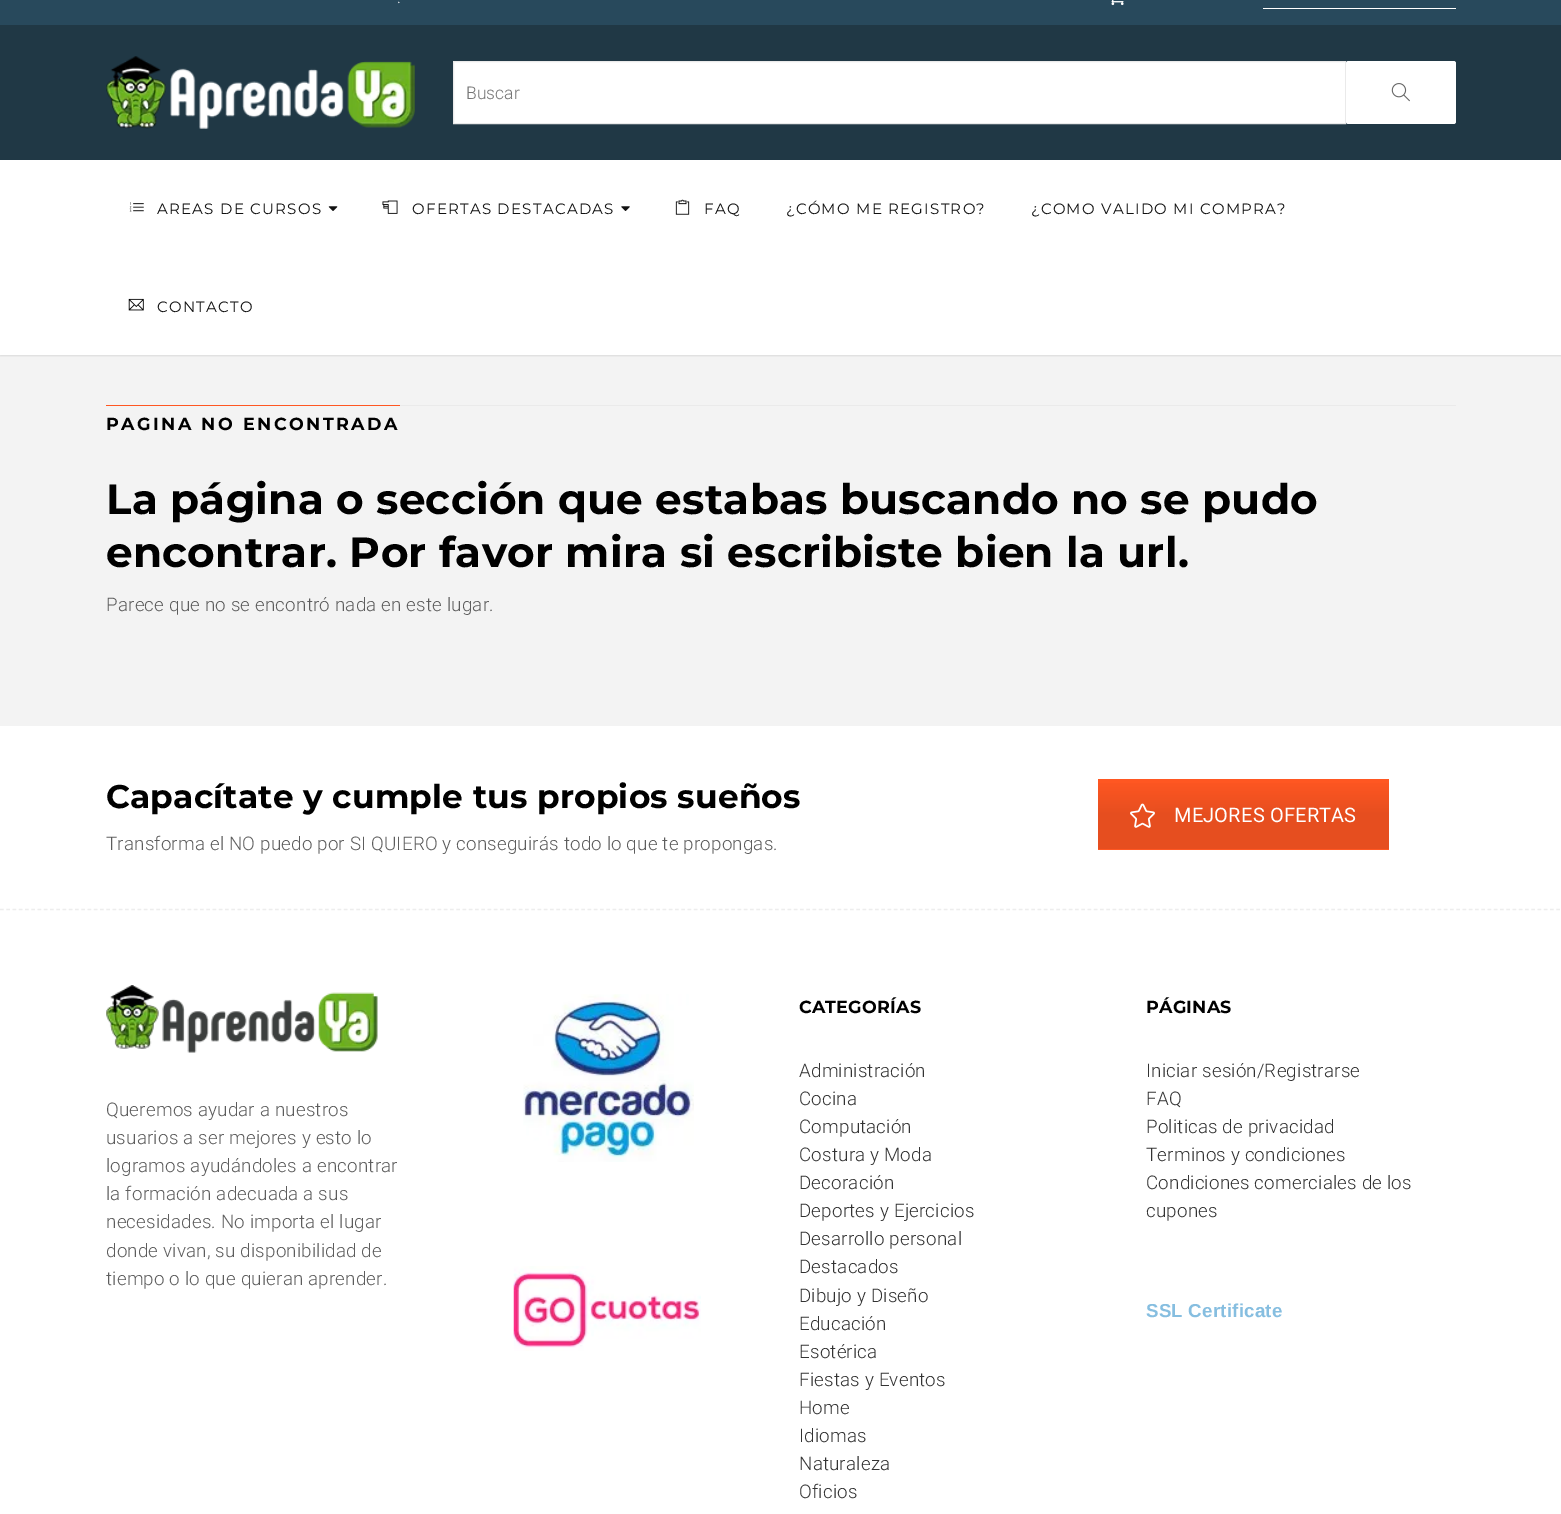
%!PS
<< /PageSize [1561 1514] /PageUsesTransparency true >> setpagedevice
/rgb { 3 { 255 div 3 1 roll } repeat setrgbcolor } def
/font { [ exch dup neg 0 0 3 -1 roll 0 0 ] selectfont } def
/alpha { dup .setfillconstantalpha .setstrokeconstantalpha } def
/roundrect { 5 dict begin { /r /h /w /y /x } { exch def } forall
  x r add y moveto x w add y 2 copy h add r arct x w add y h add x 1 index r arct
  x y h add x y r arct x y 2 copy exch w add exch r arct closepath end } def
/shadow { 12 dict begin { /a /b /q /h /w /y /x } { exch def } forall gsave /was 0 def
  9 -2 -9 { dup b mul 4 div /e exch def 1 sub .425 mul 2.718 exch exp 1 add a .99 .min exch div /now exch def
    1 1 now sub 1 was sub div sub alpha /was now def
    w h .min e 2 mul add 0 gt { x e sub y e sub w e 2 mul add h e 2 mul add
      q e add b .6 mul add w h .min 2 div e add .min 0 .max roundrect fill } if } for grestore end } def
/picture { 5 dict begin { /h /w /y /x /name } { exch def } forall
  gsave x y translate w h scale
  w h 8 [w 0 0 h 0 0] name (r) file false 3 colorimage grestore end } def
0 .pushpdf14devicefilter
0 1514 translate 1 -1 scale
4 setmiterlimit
243 243 243 rgb
0 0 1561 1514 rectfill
255 255 255 rgb
0 160 1561 195 rectfill
40 73 92 rgb
0 0 1561 25 rectfill
(img/1.rgb) 1111 0 13 6 picture
255 255 255 rgb
1263 8 193 1 rectfill
32 56 69 rgb
0 25 1561 135 rectfill
(img/2.rgb) 106 56 309 73 picture
255 255 255 rgb
453.5 61.5 moveto 1345.5 61.5 lineto 1345.5 123.5 lineto 453.5 123.5 lineto closepath gsave fill grestore
234 234 234 rgb
stroke
255 255 255 rgb
1346 61 110 63 2.5 roundrect fill
(img/3.rgb) 1391 83 19 19 picture
gsave
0 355 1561 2 rectclip
0 0 0 rgb
0 161 1561 195 0 1 0.1 shadow
grestore
(img/4.rgb) 129 202 15 10 picture
(img/5.rgb) 328 206 10 5 picture
(img/6.rgb) 382 200 16 14 picture
(img/7.rgb) 621 206 9 5 picture
(img/8.rgb) 675 199 15 16 picture
(img/9.rgb) 128 298 16 13 picture
[
  [400 405 1056 1 234 234 234]
  [106 405 294 1 255 87 34]
  [0 726 1561 788 255 255 255]
] { aload pop rgb rectfill } forall
237 237 237 rgb
1.2 setlinewidth
[3.75 2.5] 0 setdash
0 909.5 moveto 1561 909.5 lineto stroke
255 87 34 rgb
1098 779 291 71 rectfill
gsave 1098 783 moveto 1389 783 lineto 1389 849 lineto 1098 849 lineto closepath clip newpath
<< /ShadingType 2 /ColorSpace /DeviceRGB /Coords [1388 780 1388 849] /Extend [true true] /Function << /FunctionType 3 /Domain [0 1] /Functions [<< /FunctionType 2 /Domain [0 1] /C0 [1 0.341 0.133] /C1 [0.902 0.306 0.122] /N 1 >> << /FunctionType 2 /Domain [0 1] /C0 [0.902 0.306 0.122] /C1 [0.902 0.306 0.122] /N 1 >>] /Bounds [0.5] /Encode [0 1 0 1] >> >> shfill grestore
(img/10.rgb) 1130 803 25 25 picture
(img/11.rgb) 106 985 272 68 picture
(img/12.rgb) 523 994 171 168 picture
(img/13.rgb) 513 1266 188 85 picture
/Roboto-Light 16 font
255 255 255 rgb
397 3 moveto 0.2 0 (.) ashow
/Roboto-Light 17.5 font
117 117 117 rgb
466 99 moveto (Buscar) show
/Montserrat-Regular 15 font
17 17 17 rgb
157 214 moveto 1.25 0 (AREAS DE CURSOS) ashow
412 214 moveto 1.25 0 (OFERTAS DESTACADAS) ashow
704 214 moveto 1.25 0 (FAQ) ashow
786 214 moveto 1.25 0 (¿CÓMO ME REGISTRO?) ashow
1031 214 moveto 1.25 0 (¿COMO VALIDO MI COMPRA?) ashow
157 312 moveto 1.25 0 (CONTACTO) ashow
/Montserrat-Bold 17.5 font
0 0 0 rgb
106 430 moveto 2.5 0 (PAGINA NO ENCONTRADA) ashow
/Montserrat-Bold 42.2 font
106 514 moveto 0.2 0 (La página o sección que estabas buscando no se pudo) ashow
106 567 moveto 0.2 0 (encontrar. Por favor mira si escribiste bien la url.) ashow
/Roboto-Light 18.75 font
93 93 93 rgb
106 611 moveto 0.2 0 (Parece que no se encontró nada en este lugar.) ashow
/Montserrat-Bold 32.8 font
0 0 0 rgb
106 808 moveto 0.2 0 (Capacítate y cumple tus propios sueños) ashow
/Roboto-Light 18.75 font
93 93 93 rgb
106 850 moveto 0.2 0 (Transforma el NO puedo por SI QUIERO y conseguirás todo lo que te propongas.) ashow
/Roboto-Regular 20 font
255 255 255 rgb
1174 822 moveto 0.2 0 (MEJORES OFERTAS) ashow
/Roboto-Light 18.75 font
93 93 93 rgb
106 1116 moveto 0.2 0 (Queremos ayudar a nuestros) ashow
106 1144 moveto 0.2 0 (usuarios a ser mejores y esto lo) ashow
106 1172 moveto 0.2 0 (logramos ayudándoles a encontrar) ashow
106 1200 moveto 0.2 0 (la formación adecuada a sus) ashow
106 1228 moveto 0.2 0 (necesidades. No importa el lugar) ashow
106 1257 moveto 0.2 0 (donde vivan, su disponibilidad de) ashow
106 1285 moveto 0.2 0 (tiempo o lo que quieran aprender.) ashow
/Montserrat-Bold 17.5 font
0 0 0 rgb
799 1013 moveto 0.2 0 (CATEGORÍAS) ashow
/Roboto-Light 18.75 font
51 51 51 rgb
799 1077 moveto 0.2 0 (Administración) ashow
799 1105 moveto 0.2 0 (Cocina) ashow
799 1133 moveto 0.2 0 (Computación) ashow
799 1161 moveto 0.2 0 (Costura y Moda) ashow
799 1189 moveto 0.2 0 (Decoración) ashow
799 1217 moveto 0.2 0 (Deportes y Ejercicios) ashow
799 1245 moveto 0.2 0 (Desarrollo personal) ashow
799 1273 moveto 0.2 0 (Destacados) ashow
799 1302 moveto 0.2 0 (Dibujo y Diseño) ashow
799 1330 moveto 0.2 0 (Educación) ashow
799 1358 moveto 0.2 0 (Esotérica) ashow
799 1386 moveto 0.2 0 (Fiestas y Eventos) ashow
799 1414 moveto 0.2 0 (Home) ashow
799 1442 moveto 0.2 0 (Idiomas) ashow
799 1470 moveto 0.2 0 (Naturaleza) ashow
799 1498 moveto 0.2 0 (Oficios) ashow
/Montserrat-Bold 17.5 font
0 0 0 rgb
1146 1013 moveto 0.2 0 (PÁGINAS) ashow
/Roboto-Light 18.75 font
51 51 51 rgb
1146 1077 moveto 0.2 0 (Iniciar sesión/Registrarse) ashow
1146 1105 moveto 0.2 0 (FAQ) ashow
1146 1133 moveto 0.2 0 (Politicas de privacidad) ashow
1146 1161 moveto 0.2 0 (Terminos y condiciones) ashow
1146 1189 moveto 0.2 0 (Condiciones comerciales de los) ashow
1146 1217 moveto 0.2 0 (cupones) ashow
/LiberationSans-Bold 18.75 font
134 190 224 rgb
1146 1317 moveto 0.2 0 (SSL Certificate) ashow
.poppdf14devicefilter showpage
